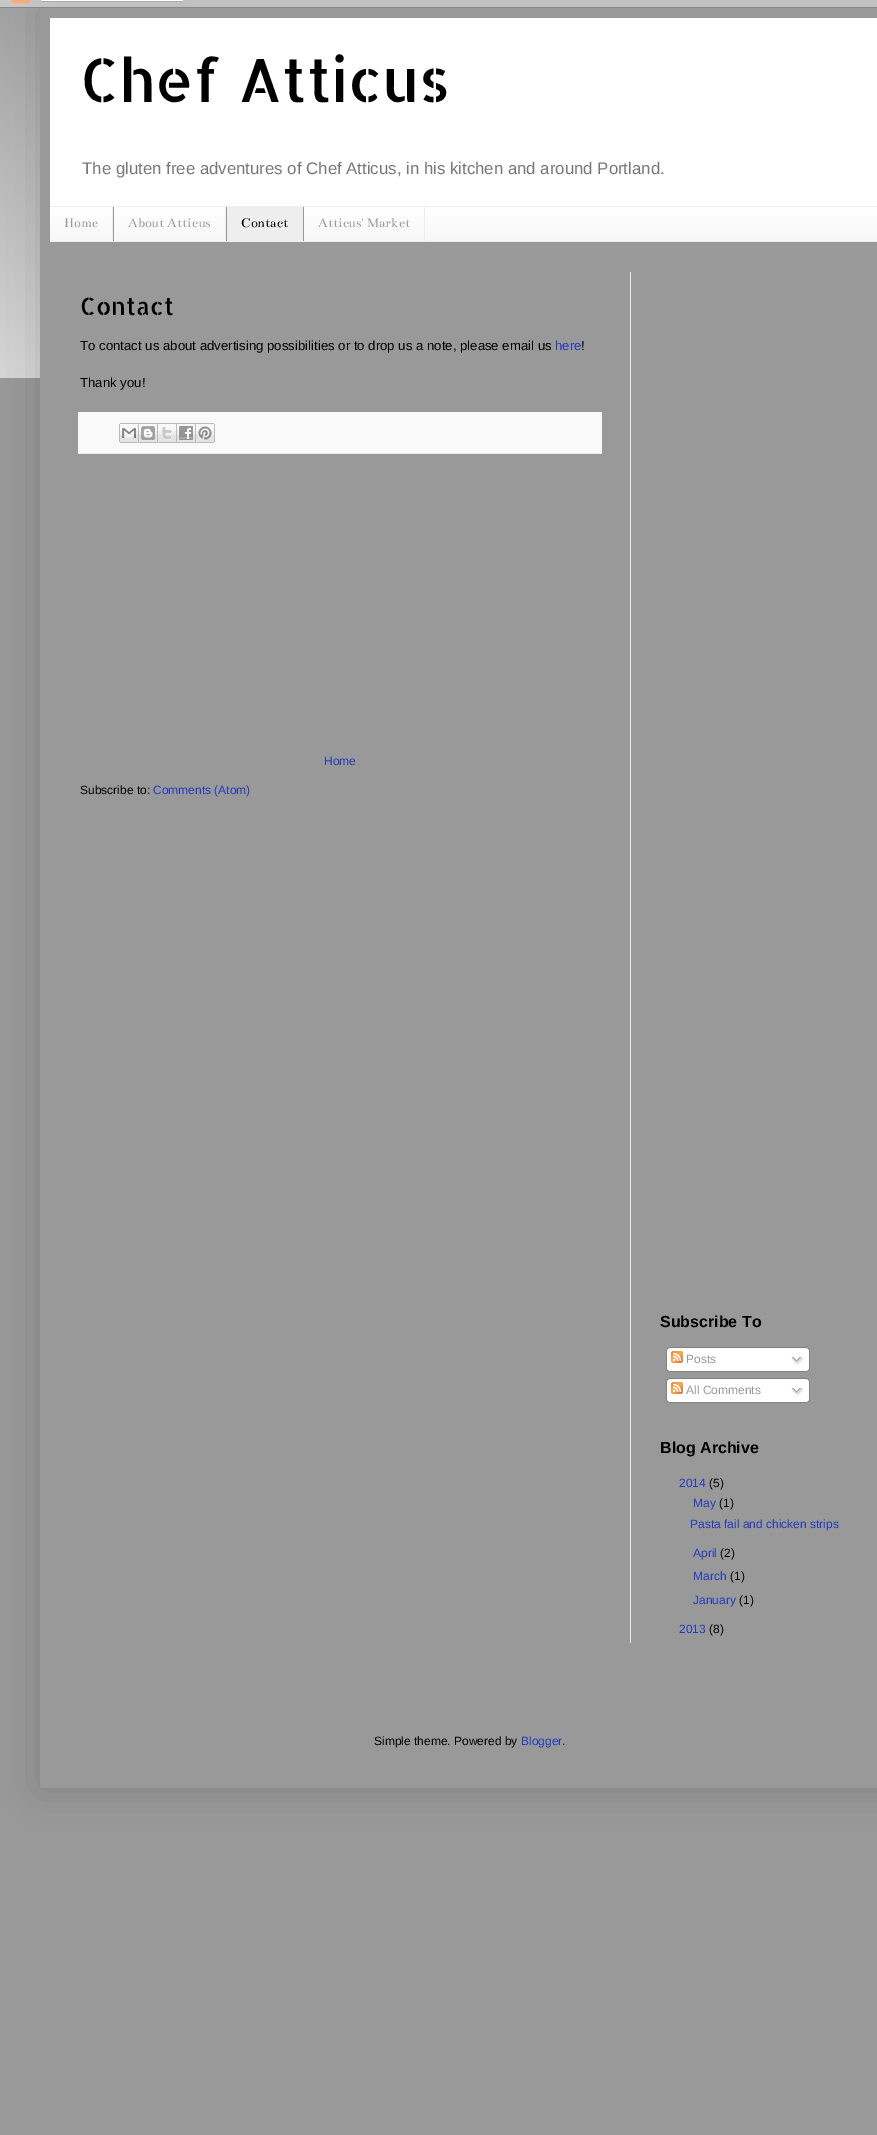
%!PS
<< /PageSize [877 2135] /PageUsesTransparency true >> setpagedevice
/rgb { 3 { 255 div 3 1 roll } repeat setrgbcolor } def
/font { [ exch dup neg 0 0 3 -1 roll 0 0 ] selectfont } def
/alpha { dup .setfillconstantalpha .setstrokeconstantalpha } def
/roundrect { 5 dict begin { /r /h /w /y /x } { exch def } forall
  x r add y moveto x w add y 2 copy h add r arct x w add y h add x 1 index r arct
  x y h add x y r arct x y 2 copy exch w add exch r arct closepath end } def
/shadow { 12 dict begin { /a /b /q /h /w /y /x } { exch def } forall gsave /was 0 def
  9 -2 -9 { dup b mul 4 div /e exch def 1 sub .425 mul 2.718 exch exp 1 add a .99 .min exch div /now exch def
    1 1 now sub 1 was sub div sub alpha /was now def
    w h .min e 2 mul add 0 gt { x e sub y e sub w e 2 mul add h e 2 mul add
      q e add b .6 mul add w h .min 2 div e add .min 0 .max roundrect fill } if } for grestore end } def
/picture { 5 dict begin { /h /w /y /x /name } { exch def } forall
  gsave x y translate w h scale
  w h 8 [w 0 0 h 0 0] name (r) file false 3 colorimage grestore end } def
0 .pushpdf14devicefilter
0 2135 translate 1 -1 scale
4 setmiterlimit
153 153 153 rgb
0 0 877 2135 rectfill
(img/1.rgb) 0 0 877 378 picture
0 0 0 rgb
40 8 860 1780 0 20 0.15 shadow
(img/2.rgb) 0 0 877 8 picture
[
  [40 8 837 1780 153 153 153]
  [50 18 827 188 255 255 255]
  [50 208 827 33 245 245 245]
] { aload pop rgb rectfill } forall
(img/3.rgb) 50 207 827 34 picture
[
  [50 206 827 1 238 238 238]
  [50 241 827 1 238 238 238]
  [112 207 1 34 238 238 238]
  [225 207 1 34 238 238 238]
  [113 207 1 34 153 153 153]
  [227 207 76 34 238 238 238]
  [226 207 1 34 153 153 153]
  [424 207 1 34 238 238 238]
  [303 207 1 34 153 153 153]
  [630 272 1 1371 238 238 238]
  [78 412 524 41 249 249 249]
  [78 453 524 1 238 238 238]
] { aload pop rgb rectfill } forall
(img/4.rgb) 119 423 20 20 picture
(img/5.rgb) 139 423 19 20 picture
(img/6.rgb) 158 423 19 20 picture
(img/7.rgb) 177 423 19 20 picture
(img/8.rgb) 196 423 19 20 picture
(img/9.rgb) 666 1347 144 22 picture
(img/10.rgb) 671 1351 12 12 picture
(img/11.rgb) 791 1356 13 9 picture
(img/12.rgb) 666 1369 144 3 picture
(img/9.rgb) 666 1378 144 22 picture
(img/10.rgb) 671 1382 12 12 picture
(img/11.rgb) 791 1387 13 9 picture
(img/12.rgb) 666 1400 144 3 picture
/AllertaStencil-Regular 60 font
0 0 0 rgb
80 102 moveto (Chef Atticus) show
/LiberationSans-Regular 16.8 font
119 119 119 rgb
82 174 moveto (The gluten free adventures of Chef Atticus, in his kitchen and around Portland.) show
/Bentham-Regular 14 font
153 153 153 rgb
64 227 moveto (Home) show
128 227 moveto (About Atticus) show
0 0 0 rgb
241 227 moveto (Contact) show
153 153 153 rgb
318 227 moveto (Atticus' Market) show
/AllertaStencil-Regular 24 font
0 0 0 rgb
80 315 moveto (Contact) show
/LiberationSans-Regular 13.2 font
80 350 moveto (To contact us about advertising possibilities or to drop us a note, please email us) show
33 58 187 rgb
555 350 moveto (here) show
0 0 0 rgb
581 350 moveto (!) show
80 387 moveto (Thank you!) show
/LiberationSans-Regular 12 font
33 58 187 rgb
324 765 moveto (Home) show
0 0 0 rgb
80 794 moveto (Subscribe to:) show
33 58 187 rgb
153 794 moveto (Comments \(Atom\)) show
/LiberationSans-Bold 16 font
0 0 0 rgb
660 1327 moveto (Subscribe To) show
/LiberationSans-Regular 12 font
153 153 153 rgb
686 1363 moveto (Posts) show
686 1394 moveto (All Comments) show
/LiberationSans-Bold 16 font
0 0 0 rgb
660 1453 moveto (Blog Archive) show
/LiberationSans-Regular 12 font
33 58 187 rgb
679 1487 moveto (2014) show
0 0 0 rgb
709 1487 moveto (\(5\)) show
33 58 187 rgb
693 1507 moveto (May) show
0 0 0 rgb
719 1507 moveto (\(1\)) show
33 58 187 rgb
690 1528 moveto (Pasta fail and chicken strips) show
693 1557 moveto (April) show
0 0 0 rgb
720 1557 moveto (\(2\)) show
33 58 187 rgb
693 1580 moveto (March) show
0 0 0 rgb
730 1580 moveto (\(1\)) show
33 58 187 rgb
693 1604 moveto (January) show
0 0 0 rgb
739 1604 moveto (\(1\)) show
33 58 187 rgb
679 1633 moveto (2013) show
0 0 0 rgb
709 1633 moveto (\(8\)) show
374 1745 moveto (Simple theme. Powered by) show
33 58 187 rgb
521 1745 moveto (Blogger) show
0 0 0 rgb
562 1745 moveto (.) show
.poppdf14devicefilter showpage
